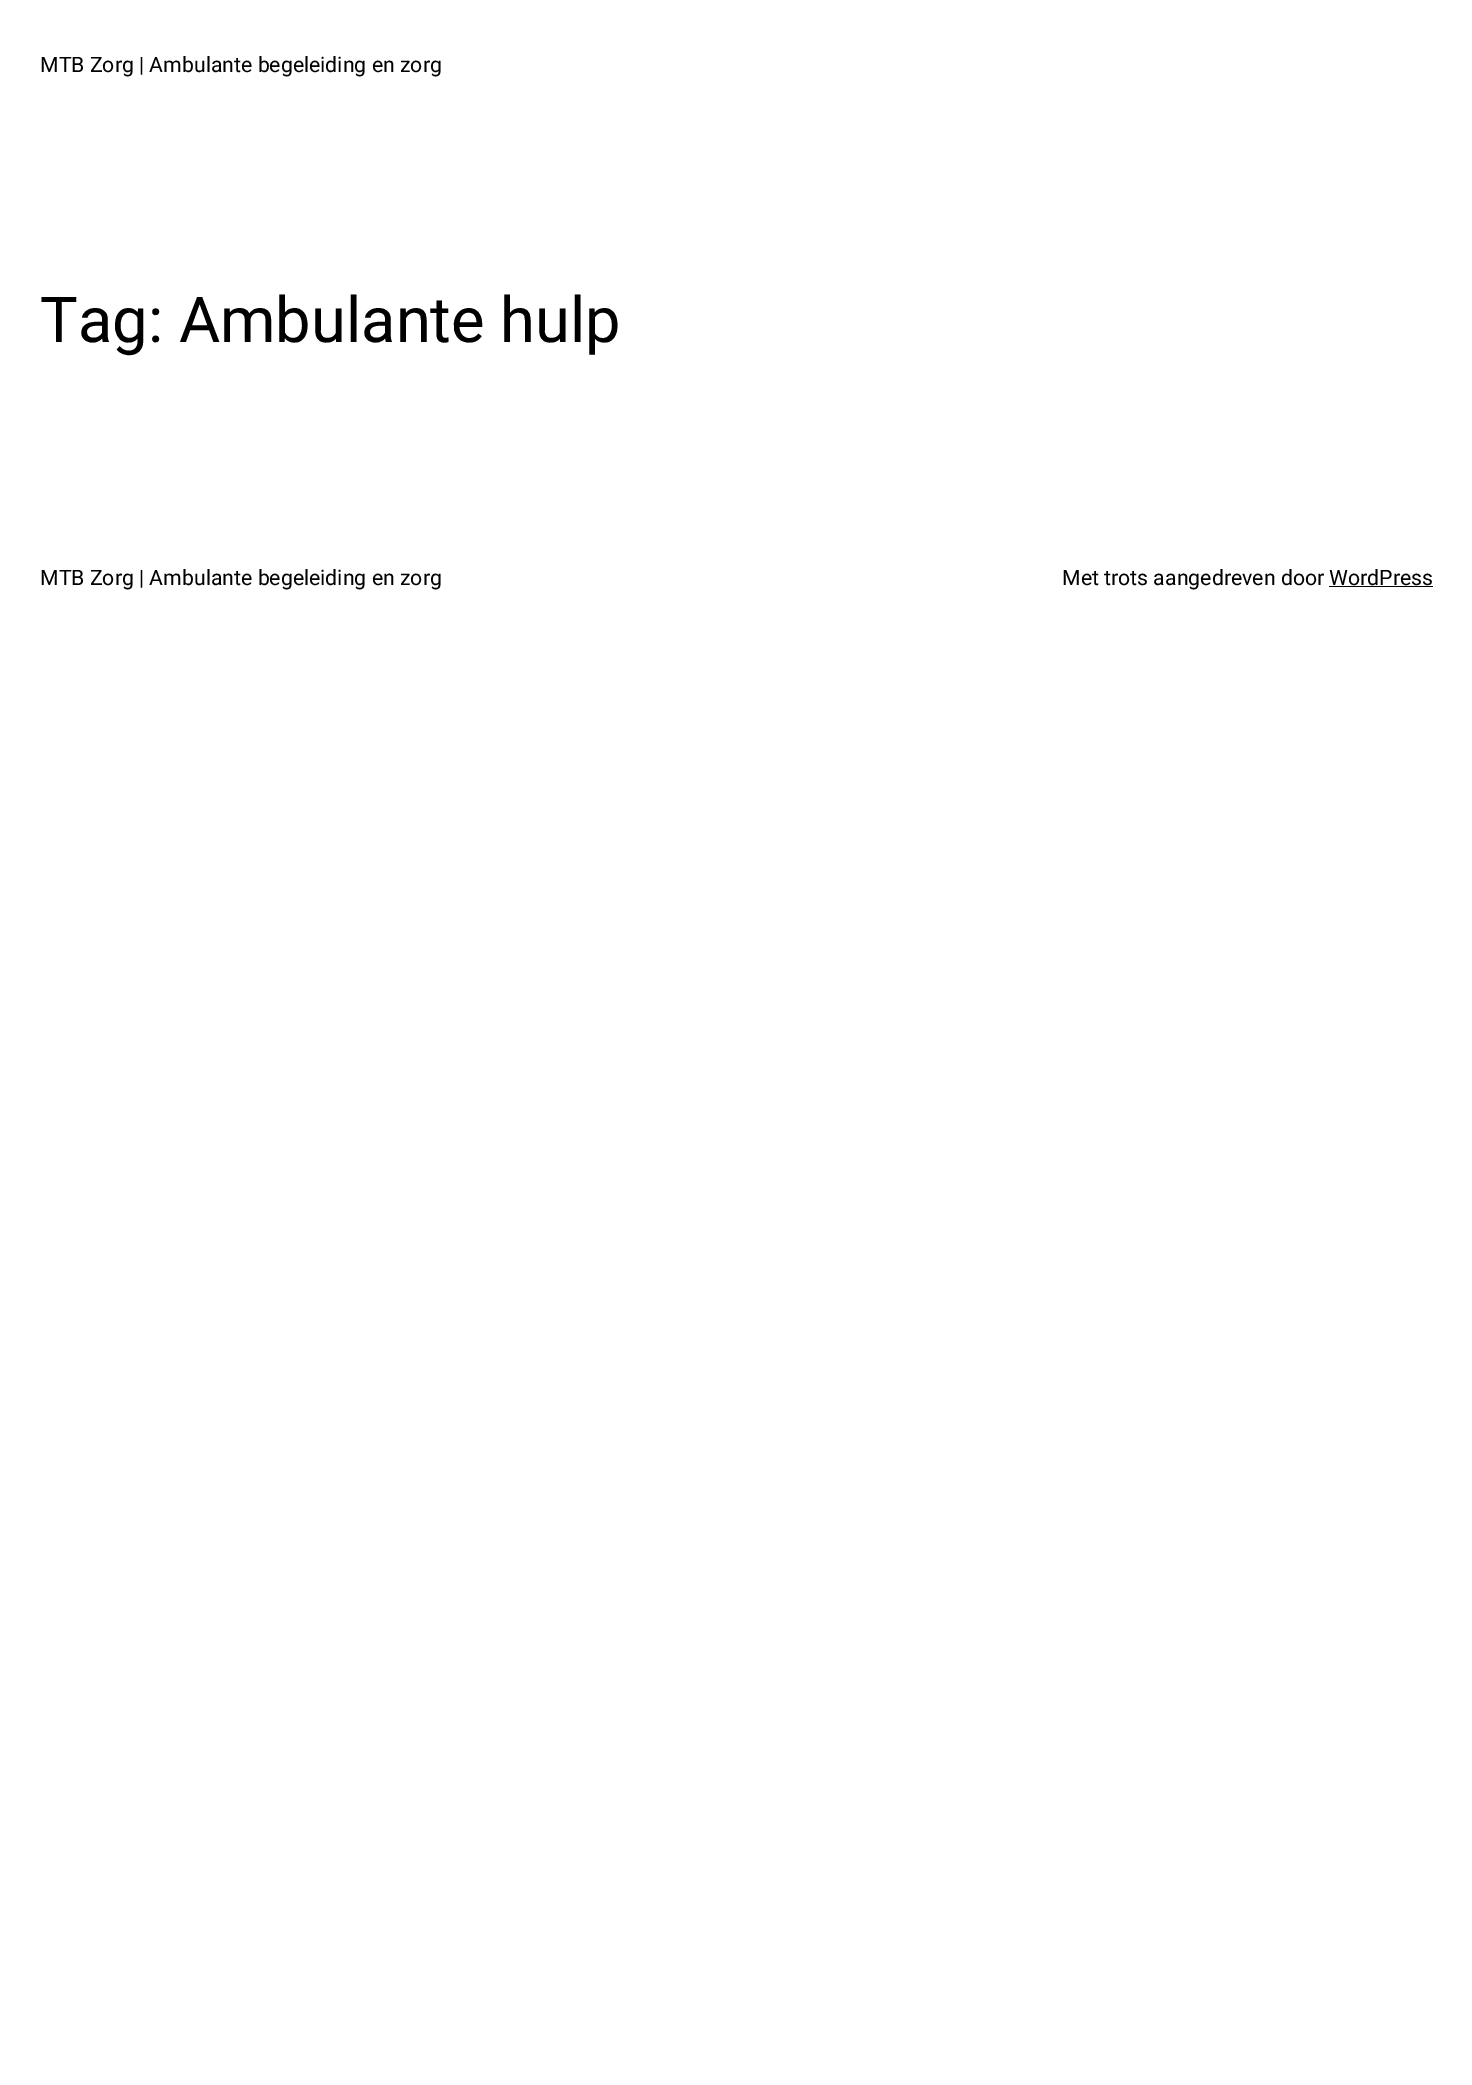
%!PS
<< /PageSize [1472 2085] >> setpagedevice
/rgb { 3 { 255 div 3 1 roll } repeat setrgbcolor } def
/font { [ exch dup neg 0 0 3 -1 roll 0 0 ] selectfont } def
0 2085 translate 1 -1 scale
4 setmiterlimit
255 255 255 rgb
0 0 1472 2085 rectfill
0 0 0 rgb
1329 586 104 1 rectfill
/Roboto-Regular 21.25 font
40 72 moveto (MTB Zorg | Ambulante begeleiding en zorg) show
/Roboto-Regular 63.25 font
40 342 moveto (Tag: Ambulante hulp) show
/Roboto-Regular 21.25 font
40 585 moveto (MTB Zorg | Ambulante begeleiding en zorg) show
1062 585 moveto (Met trots aangedreven door WordPress) show
showpage
